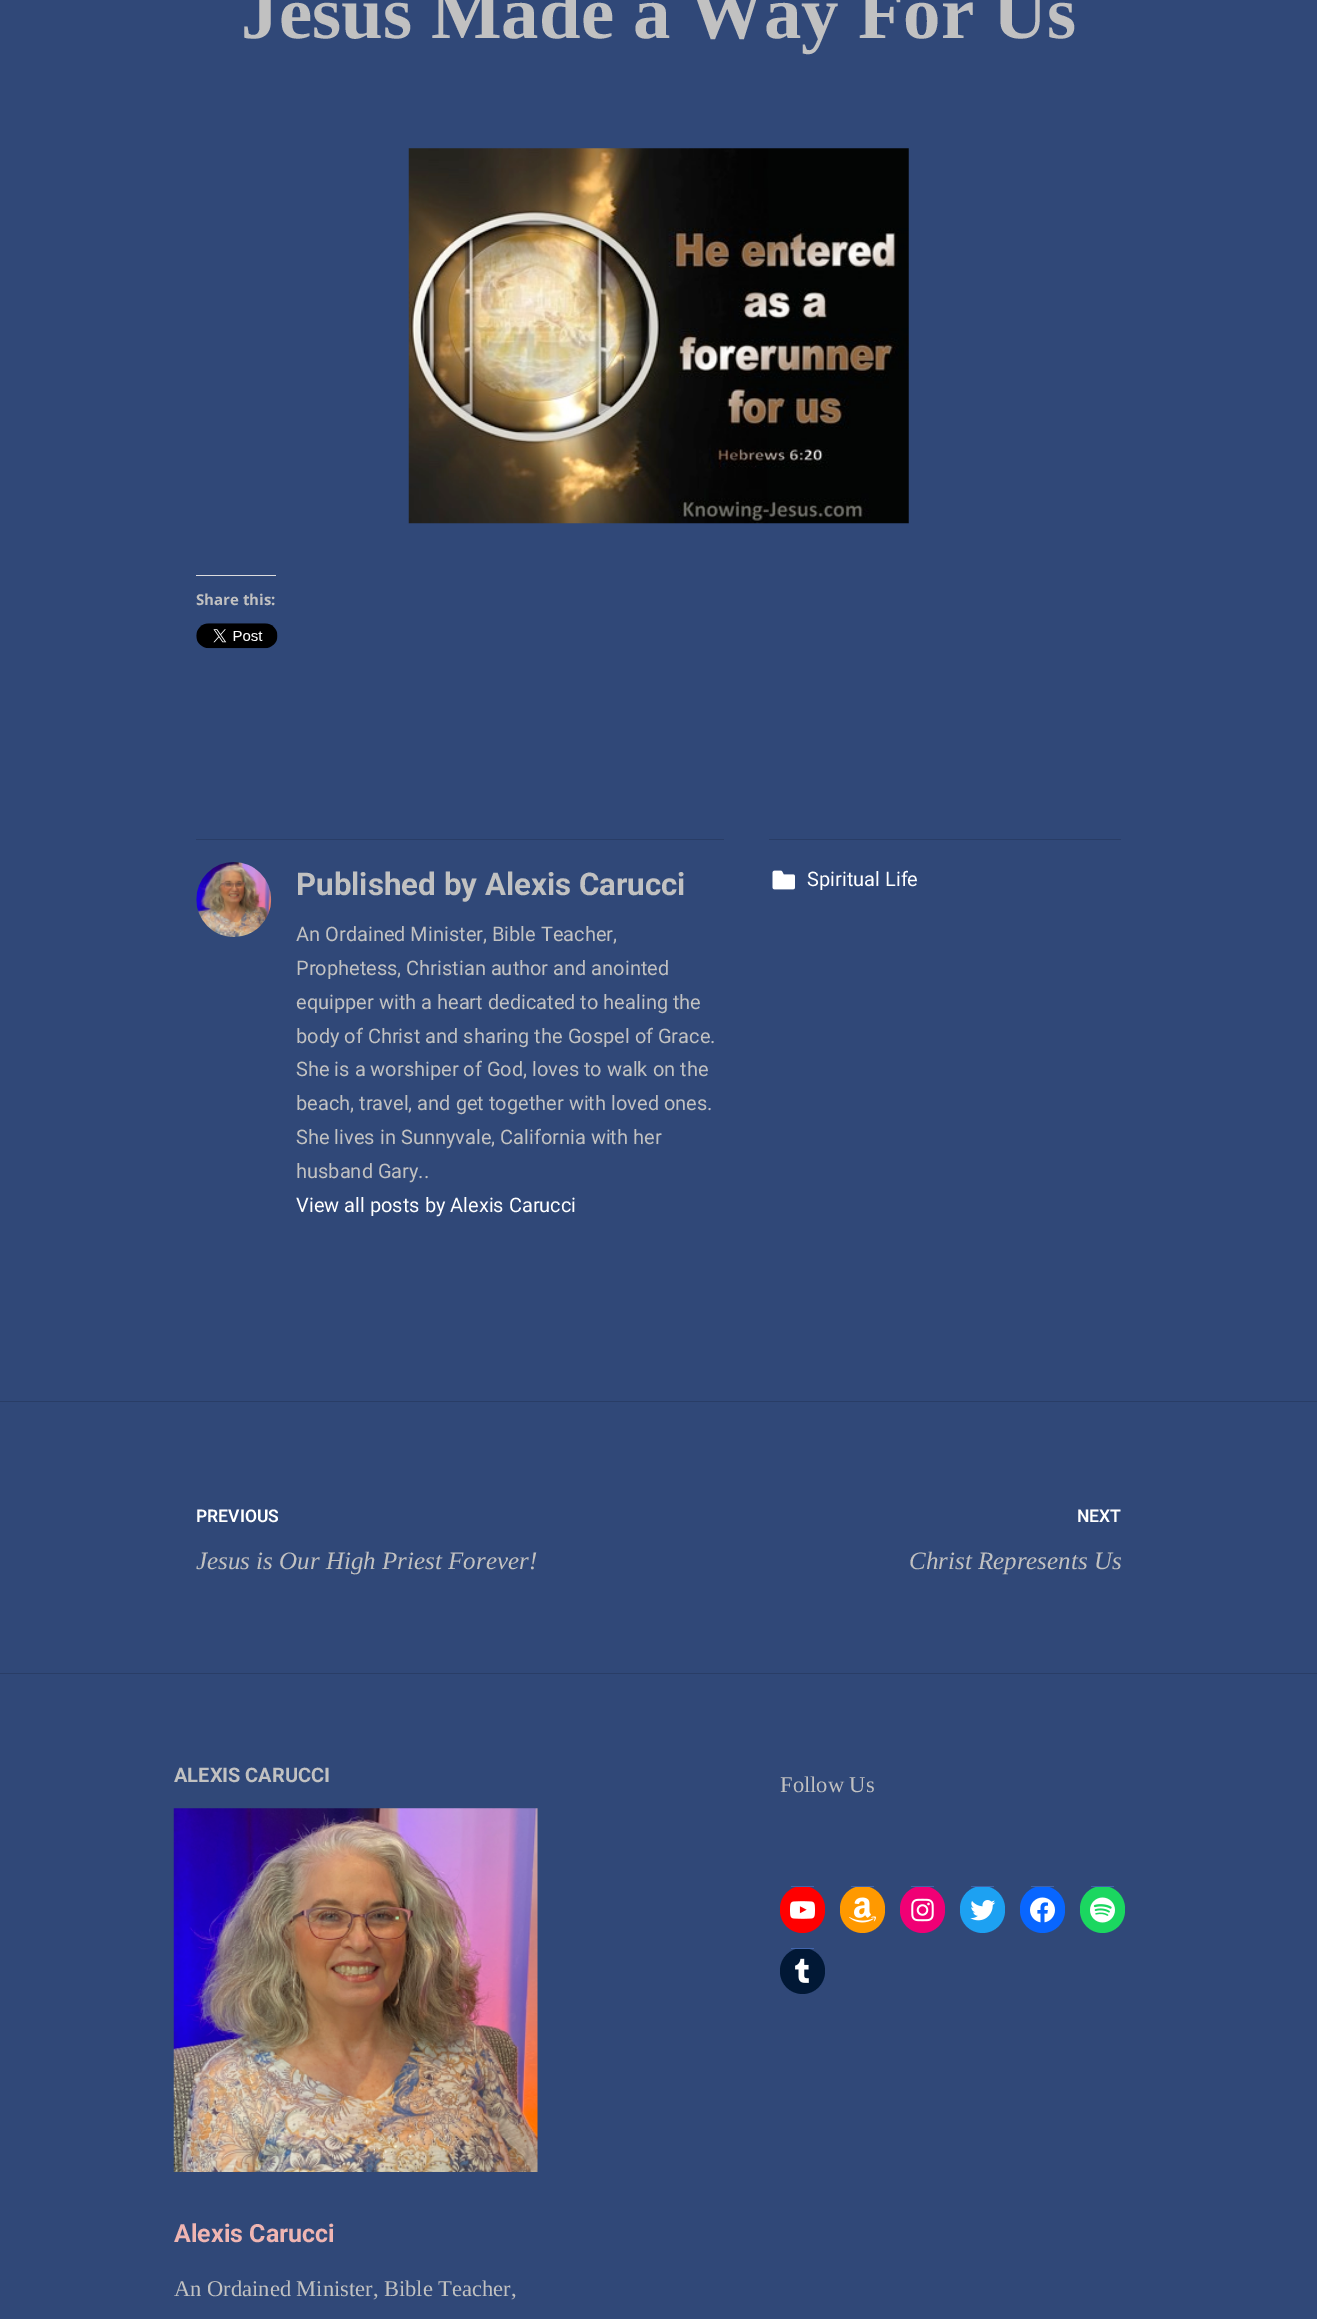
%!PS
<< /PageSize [1317 2319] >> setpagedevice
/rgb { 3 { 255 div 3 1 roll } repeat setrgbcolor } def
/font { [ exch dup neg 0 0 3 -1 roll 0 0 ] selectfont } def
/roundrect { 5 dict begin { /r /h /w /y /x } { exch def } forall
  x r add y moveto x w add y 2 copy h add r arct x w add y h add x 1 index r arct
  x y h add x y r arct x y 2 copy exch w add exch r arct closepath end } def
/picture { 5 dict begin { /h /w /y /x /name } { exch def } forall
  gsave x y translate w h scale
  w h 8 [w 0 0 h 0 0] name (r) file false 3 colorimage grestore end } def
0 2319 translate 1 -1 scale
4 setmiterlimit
48 72 120 rgb
0 0 1317 2319 rectfill
(img/1.rgb) 408 148 501 376 picture
220 220 222 rgb
196 575 80 1 rectfill
(img/2.rgb) 196 623 82 26 picture
41 61 102 rgb
196 839 528 1 rectfill
(img/3.rgb) 196 862 76 75 picture
769 839 352 1 rectfill
(img/4.rgb) 772 870 23 20 picture
0 1401 1317 1 rectfill
0 1673 1317 1 rectfill
(img/5.rgb) 173 1808 365 364 picture
255 0 0 rgb
780 1886 45 47 22.5 roundrect fill
64 99 170 rgb
791 1886 23 1 rectfill
(img/6.rgb) 790 1901 25 18 picture
255 153 0 rgb
840 1886 45 47 22.5 roundrect fill
64 99 170 rgb
851 1886 23 1 rectfill
(img/7.rgb) 849 1897 27 26 picture
240 0 117 rgb
900 1886 45 47 22.5 roundrect fill
64 99 170 rgb
911 1886 23 1 rectfill
(img/8.rgb) 911 1898 23 24 picture
29 161 242 rgb
960 1886 45 47 22.5 roundrect fill
64 99 170 rgb
971 1886 23 1 rectfill
(img/9.rgb) 970 1900 26 21 picture
8 102 255 rgb
1020 1886 45 47 22.5 roundrect fill
64 99 170 rgb
1031 1886 23 1 rectfill
(img/10.rgb) 1030 1897 25 26 picture
27 215 96 rgb
1080 1886 45 47 22.5 roundrect fill
64 99 170 rgb
1091 1886 23 1 rectfill
(img/11.rgb) 1090 1897 25 26 picture
1 24 53 rgb
780 1948 45 46 22.5 roundrect fill
64 99 170 rgb
791 1948 23 1 rectfill
(img/12.rgb) 795 1958 14 25 picture
/LiberationSerif-Bold 75 font
193 193 193 rgb
241 38 moveto (Jesus Made a Way For Us) show
/OpenSans-Bold 15 font
196 605 moveto (Share this:) show
/Roboto-Bold 31.25 font
296 895 moveto (Published by Alexis Carucci) show
/Roboto-Regular 20 font
[
  [(An Ordained Minister, Bible Teacher,) 296 941]
  [(Prophetess, Christian author and anointed) 296 975]
  [(equipper with a heart dedicated to healing the) 296 1009]
  [(body of Christ and sharing the Gospel of Grace.) 296 1043]
  [(She is a worshiper of God, loves to walk on the) 296 1076]
  [(beach, travel, and get together with loved ones.) 296 1110]
  [(She lives in Sunnyvale, California with her) 296 1144]
  [(husband Gary..) 296 1178]
] { aload pop moveto show } forall
255 255 255 rgb
296 1212 moveto (View all posts by Alexis Carucci) show
807 886 moveto (Spiritual Life) show
/Roboto-SemiBold 17.5 font
196 1522 moveto (PREVIOUS) show
/LiberationSerif-Italic 25 font
193 193 193 rgb
196 1569 moveto (Jesus is Our High Priest Forever!) show
/Roboto-SemiBold 17.5 font
255 255 255 rgb
1077 1522 moveto (NEXT) show
/LiberationSerif-Italic 25 font
193 193 193 rgb
909 1569 moveto (Christ Represents Us) show
/Roboto-Bold 20 font
174 1782 moveto (ALEXIS CARUCCI) show
/Roboto-Bold 25 font
239 181 178 rgb
174 2242 moveto (Alexis Carucci) show
/LiberationSerif-Regular 22.5 font
193 193 193 rgb
174 2296 moveto (An Ordained Minister, Bible Teacher,) show
780 1792 moveto (Follow Us) show
showpage
